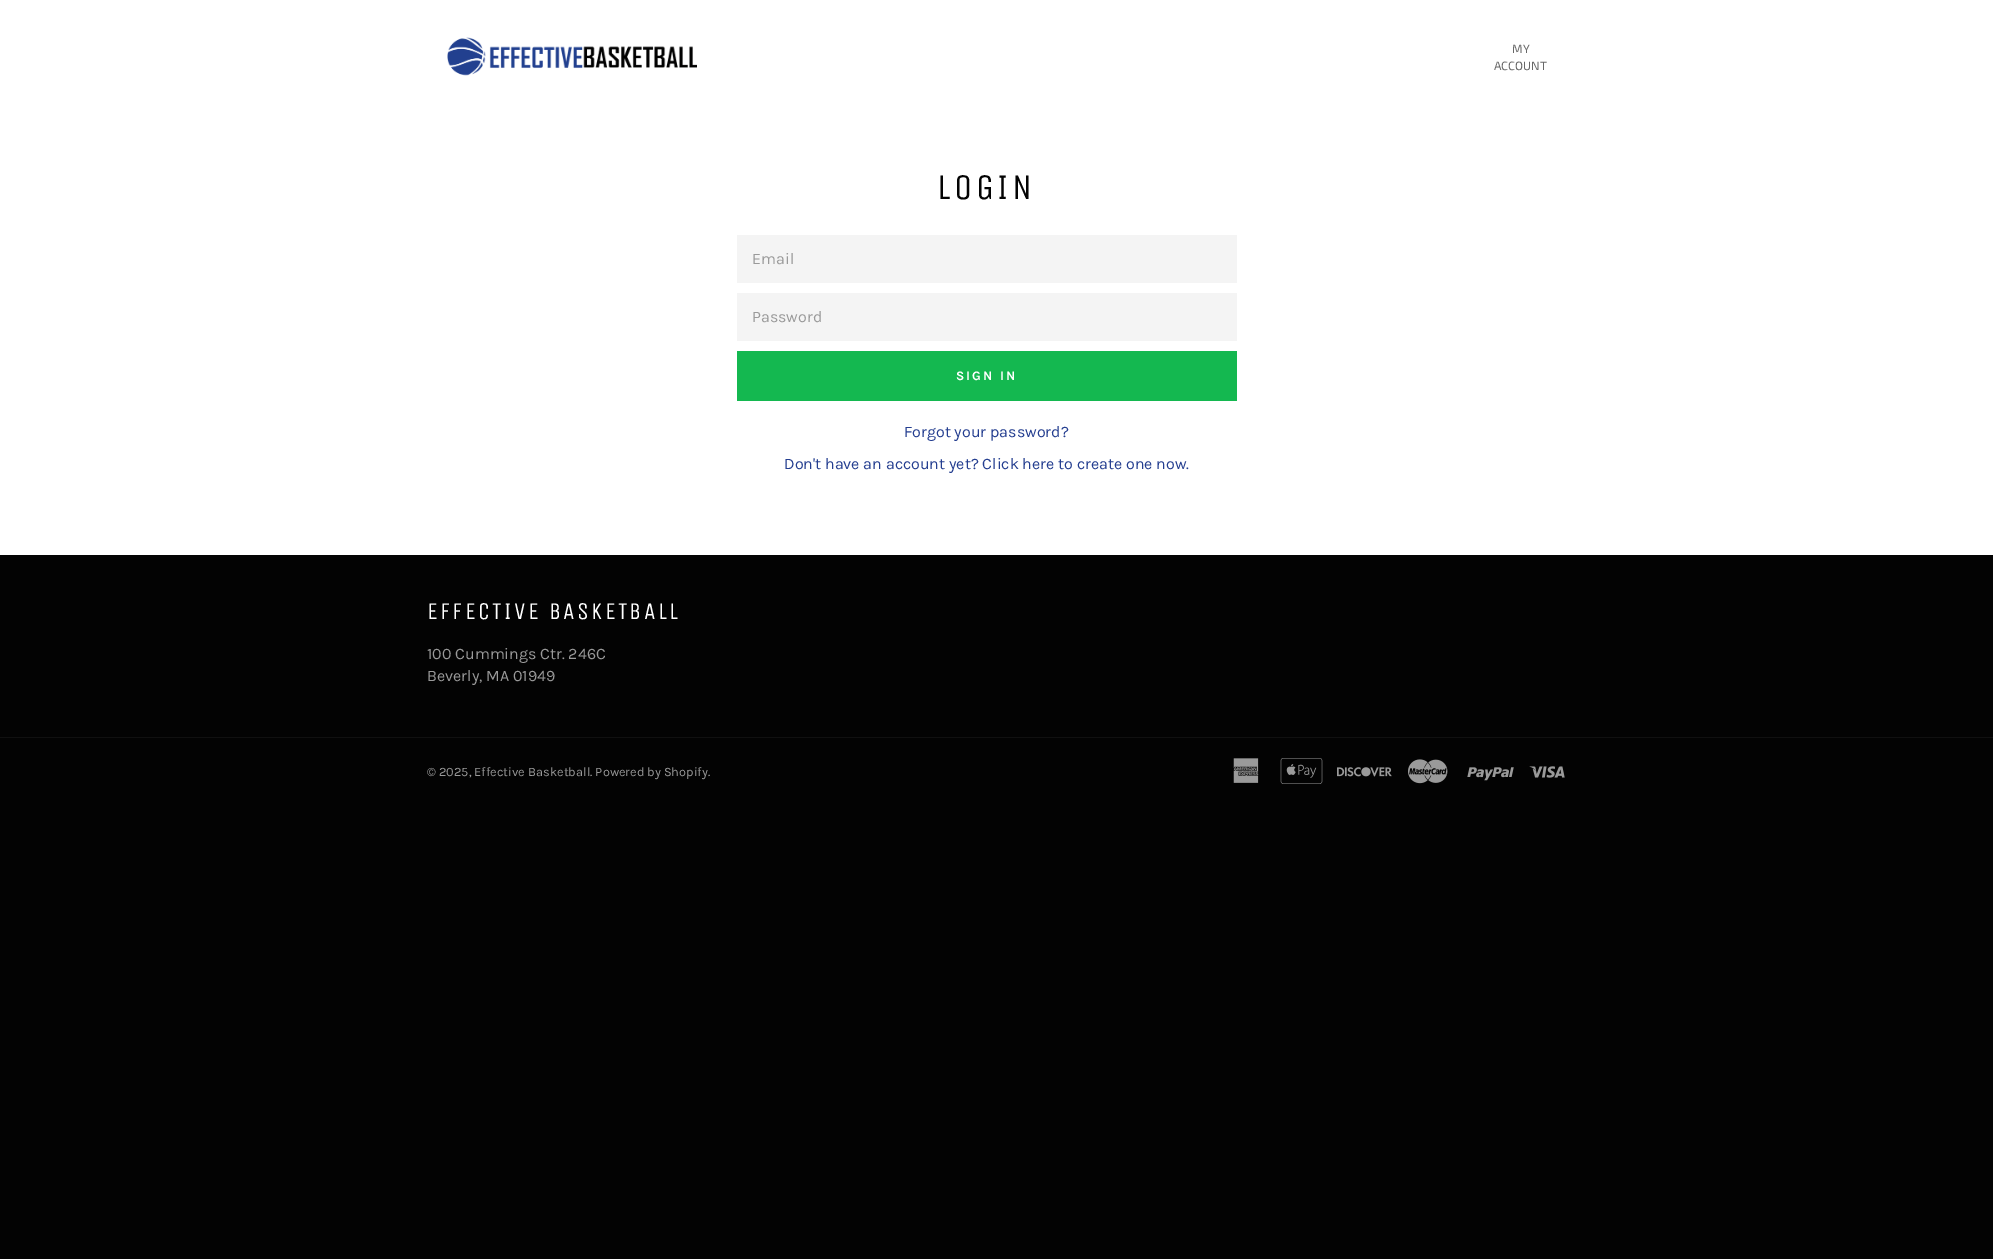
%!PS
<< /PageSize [1993 1259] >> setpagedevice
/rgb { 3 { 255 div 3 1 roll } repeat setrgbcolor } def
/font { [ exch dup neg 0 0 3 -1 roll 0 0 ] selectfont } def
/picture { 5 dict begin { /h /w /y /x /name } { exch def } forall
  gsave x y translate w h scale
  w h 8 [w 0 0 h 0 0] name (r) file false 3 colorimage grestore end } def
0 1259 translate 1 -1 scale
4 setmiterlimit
3 3 3 rgb
0 0 1993 1259 rectfill
255 255 255 rgb
0 0 1993 555 rectfill
(img/1.rgb) 447 37 250 39 picture
[
  [737 235 500 48 244 244 244]
  [737 293 500 48 244 244 244]
  [737 351 500 50 20 184 80]
  [0 737 1993 1 16 16 16]
] { aload pop rgb rectfill } forall
(img/2.rgb) 1233 758 26 25 picture
(img/3.rgb) 1280 758 43 26 picture
(img/4.rgb) 1337 767 55 10 picture
(img/5.rgb) 1408 759 40 25 picture
(img/6.rgb) 1467 767 47 14 picture
(img/7.rgb) 1529 766 36 12 picture
/Exo2-Regular 12 font
104 104 104 rgb
1512 53 moveto (MY) show
1494 70 moveto (ACCOUNT) show
/UnicaOne-Regular 36 font
3 3 3 rgb
937 199 moveto 3.5 0 (LOGIN) ashow
/Karla-Regular 16 font
154 154 154 rgb
752 264 moveto (Email) show
752 322 moveto (Password) show
/Karla-Bold 13 font
255 255 255 rgb
956 380 moveto 2 0 (SIGN IN) ashow
/Karla-Regular 16 font
36 62 144 rgb
904 437 moveto (Forgot your password?) show
784 469 moveto (Don't have an account yet? Click here to create one now.) show
/UnicaOne-Regular 24 font
255 255 255 rgb
427 619 moveto 2.4 0 (EFFECTIVE BASKETBALL) ashow
/Karla-Regular 16 font
154 154 154 rgb
427 659 moveto (100 Cummings Ctr. 246C) show
427 681 moveto (Beverly, MA 01949) show
/Karla-Regular 12.8 font
427 776 moveto (© 2025, Effective Basketball. Powered by Shopify.) show
showpage
